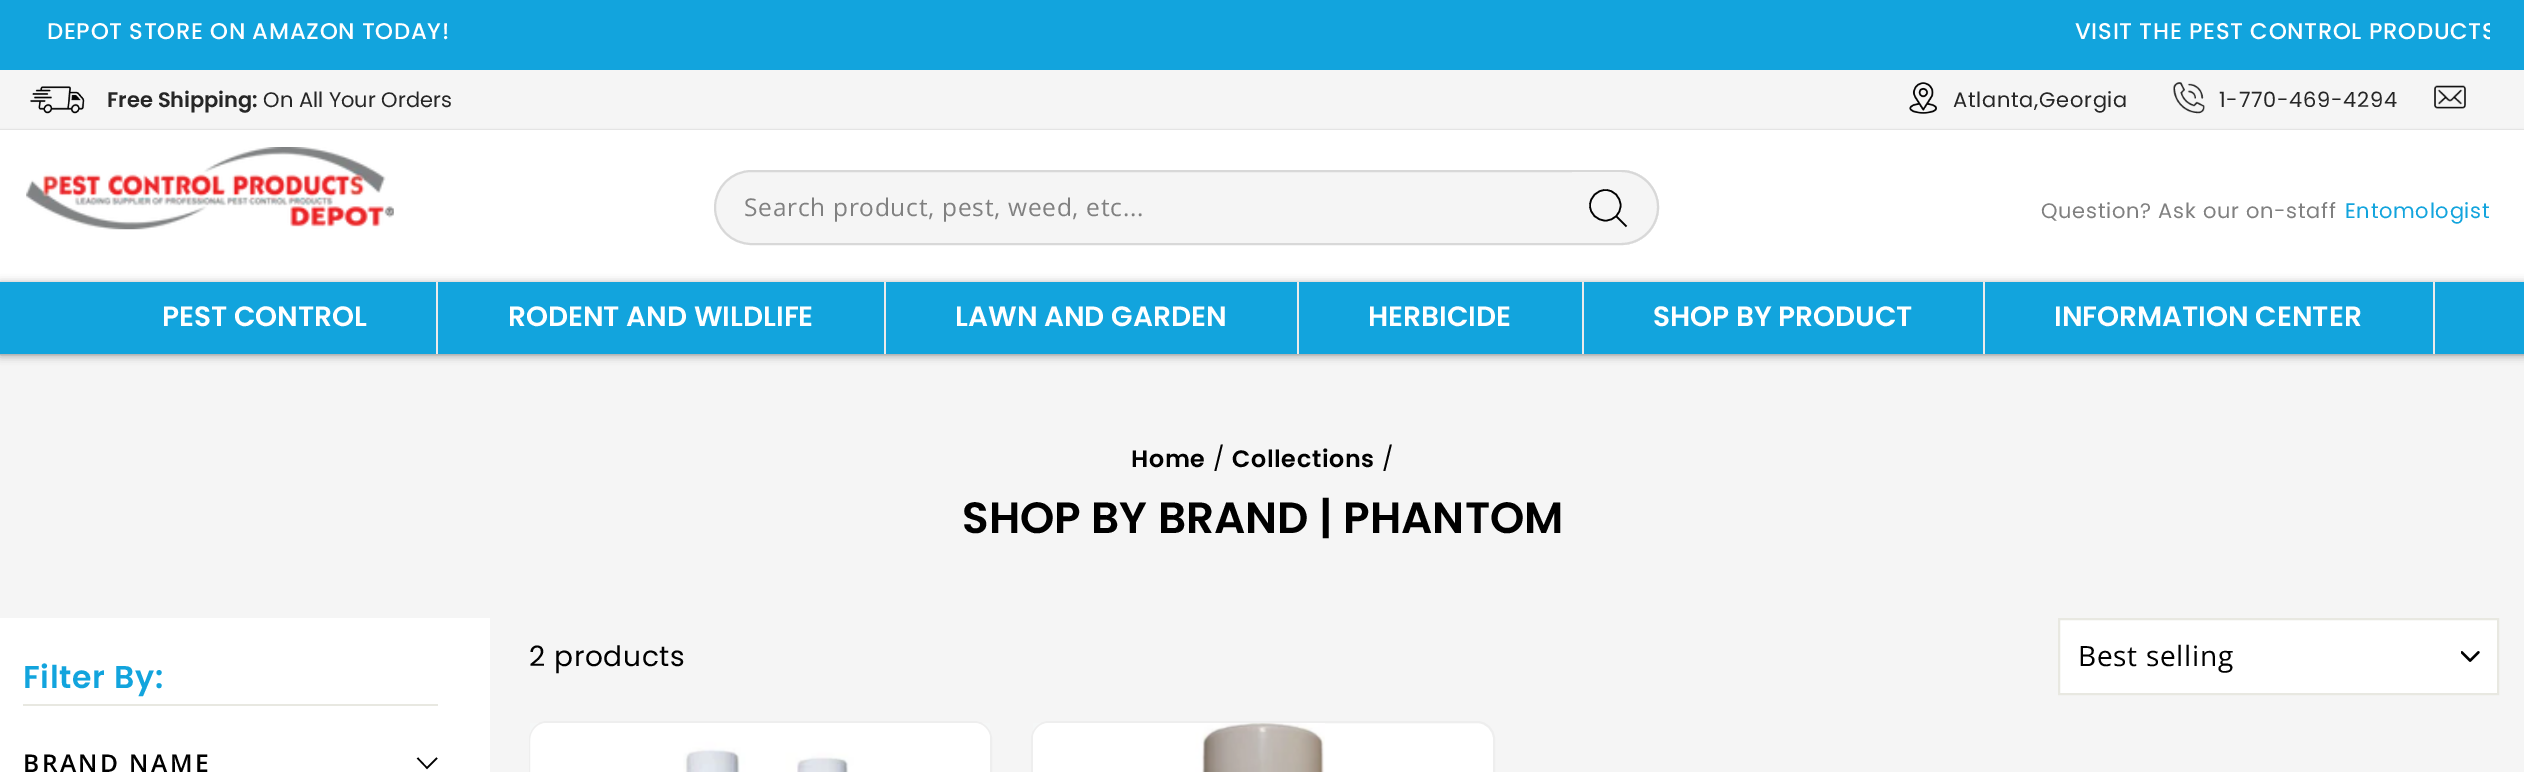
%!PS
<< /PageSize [2524 772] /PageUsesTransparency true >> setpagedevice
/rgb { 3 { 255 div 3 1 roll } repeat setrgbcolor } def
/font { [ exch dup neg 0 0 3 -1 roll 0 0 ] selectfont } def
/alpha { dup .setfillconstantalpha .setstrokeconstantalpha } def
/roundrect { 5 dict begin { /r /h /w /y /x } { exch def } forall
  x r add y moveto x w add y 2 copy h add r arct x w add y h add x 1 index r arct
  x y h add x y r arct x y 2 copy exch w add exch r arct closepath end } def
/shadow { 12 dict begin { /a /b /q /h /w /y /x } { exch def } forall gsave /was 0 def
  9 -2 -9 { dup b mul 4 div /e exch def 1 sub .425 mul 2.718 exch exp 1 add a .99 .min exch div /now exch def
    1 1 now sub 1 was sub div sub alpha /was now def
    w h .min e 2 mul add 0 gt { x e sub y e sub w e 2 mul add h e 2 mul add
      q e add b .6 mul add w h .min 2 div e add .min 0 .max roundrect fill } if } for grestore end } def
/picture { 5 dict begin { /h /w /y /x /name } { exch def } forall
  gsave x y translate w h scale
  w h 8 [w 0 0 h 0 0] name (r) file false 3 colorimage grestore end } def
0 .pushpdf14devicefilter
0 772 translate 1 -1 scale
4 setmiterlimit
245 245 245 rgb
0 0 2524 772 rectfill
18 164 221 rgb
0 0 2524 70 rectfill
(img/1.rgb) 30 86 55 28 picture
(img/2.rgb) 1909 82 28 32 picture
(img/3.rgb) 2173 82 32 32 picture
(img/4.rgb) 2434 85 32 24 picture
0 0 0 rgb
0 130 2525 224 0 1 0.2 shadow
255 255 255 rgb
0 130 2524 152 rectfill
(img/5.rgb) 26 147 368 83 picture
245 245 245 rgb
715 171 943 73 36.5 roundrect gsave fill grestore
216 216 216 rgb
2 setlinewidth
stroke
245 245 245 rgb
1572 170 moveto 1621.5 170 lineto 1642 170 1659 187 1659 207.5 curveto 1659 228 1642 245 1621.5 245 curveto 1572 245 lineto closepath fill
216 216 216 rgb
1572 170 moveto 1621 170 lineto 1642 170 1659 187 1659 207 curveto 1659 228 1642 245 1621 245 curveto 1572 245 lineto closepath 1572 172 moveto 1621 172 lineto 1641 172 1657 188 1657 207 curveto 1657 227 1641 243 1621 243 curveto 1572 243 lineto closepath eofill
0 0 0 rgb
1.6 setlinewidth
1620.5 205.5 moveto 1620.5 214 1614 220.5 1605.5 220.5 curveto 1597 220.5 1590 214 1590 205.5 curveto 1590 197 1597 190 1605.5 190 curveto 1614 190 1620.5 197 1620.5 205.5 curveto closepath 1626.5 226.5 moveto 1616.5 216.5 lineto stroke
0 284 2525 71 0 4.5 0.4 shadow
[
  [0 282 2524 72 18 164 221]
  [436 282 2 72 235 235 235]
  [884 282 2 72 235 235 235]
  [1297 282 2 72 235 235 235]
  [1582 282 2 72 235 235 235]
  [1983 282 2 72 235 235 235]
  [2433 282 2 72 235 235 235]
  [2060 620 437 73 255 255 255]
] { aload pop rgb rectfill } forall
(img/6.rgb) 2461 651 19 11 picture
232 232 225 rgb
2 setlinewidth
2059 619 439 75 rectstroke
255 255 255 rgb
530 722 461 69 17 roundrect gsave fill grestore
238 238 238 rgb
stroke
(img/7.rgb) 530 723 460 49 picture
255 255 255 rgb
1032 722 462 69 17 roundrect gsave fill grestore
238 238 238 rgb
stroke
(img/8.rgb) 1033 723 292 49 picture
255 255 255 rgb
0 618 490 154 rectfill
232 232 225 rgb
23 704 415 2 rectfill
0 0 0 rgb
1.5 setlinewidth
417.5 758 moveto 427 768 lineto 437 758 lineto stroke
/Poppins-Medium 22.75 font
255 255 255 rgb
47 39 moveto 0.7 0 (DEPOT STORE ON AMAZON TODAY!) ashow
gsave
1264 5 1226 53 rectclip
2075 39 moveto 0.7 0 (VISIT THE PEST CONTROL PRODUCTS) ashow
grestore
/Poppins-SemiBold 21 font
38 38 38 rgb
107 107 moveto (Free Shipping:) show
/Poppins-Regular 21 font
263 107 moveto (On All Your Orders) show
1953 107 moveto 0.7 0 (Atlanta,Georgia) ashow
2219 107 moveto 0.7 0 (1-770-469-4294) ashow
/OpenSans-Regular 24.5 font
128 128 128 rgb
744 216 moveto 0.7 0 (Search product, pest, weed, etc...) ashow
/Poppins-Regular 21 font
2041 218 moveto 0.7 0 (Question? Ask our on-staff) ashow
18 164 221 rgb
2345 218 moveto 0.7 0 (Entomologist) ashow
/Poppins-SemiBold 28 font
255 255 255 rgb
[
  [(PEST CONTROL) 162 326]
  [(RODENT AND WILDLIFE) 508 326]
  [(LAWN AND GARDEN) 955 326]
  [(HERBICIDE) 1368 326]
  [(SHOP BY PRODUCT) 1653 326]
  [(INFORMATION CENTER) 2054 326]
] { aload pop moveto show } forall
/Poppins-SemiBold 23.75 font
0 0 0 rgb
1131 467 moveto 0.7 0 (Home) ashow
/Poppins-Regular 23.75 font
1213 467 moveto 0.7 0 (/) ashow
/Poppins-SemiBold 23.75 font
1232 467 moveto 0.7 0 (Collections) ashow
/Poppins-Regular 23.75 font
1382 467 moveto 0.7 0 (/) ashow
/Poppins-SemiBold 43.75 font
962 533 moveto (SHOP BY BRAND | PHANTOM) show
/Poppins-Regular 28 font
529 666 moveto 0.7 0 (2 products) ashow
/OpenSans-Regular 28 font
2078 666 moveto 0.7 0 (Best selling) ashow
/Poppins-SemiBold 31.5 font
18 164 221 rgb
23 688 moveto 0.7 0 (Filter By:) ashow
/OpenSans-SemiBold 24.5 font
0 0 0 rgb
23 772 moveto 2.5 0 (BRAND NAME) ashow
.poppdf14devicefilter showpage
